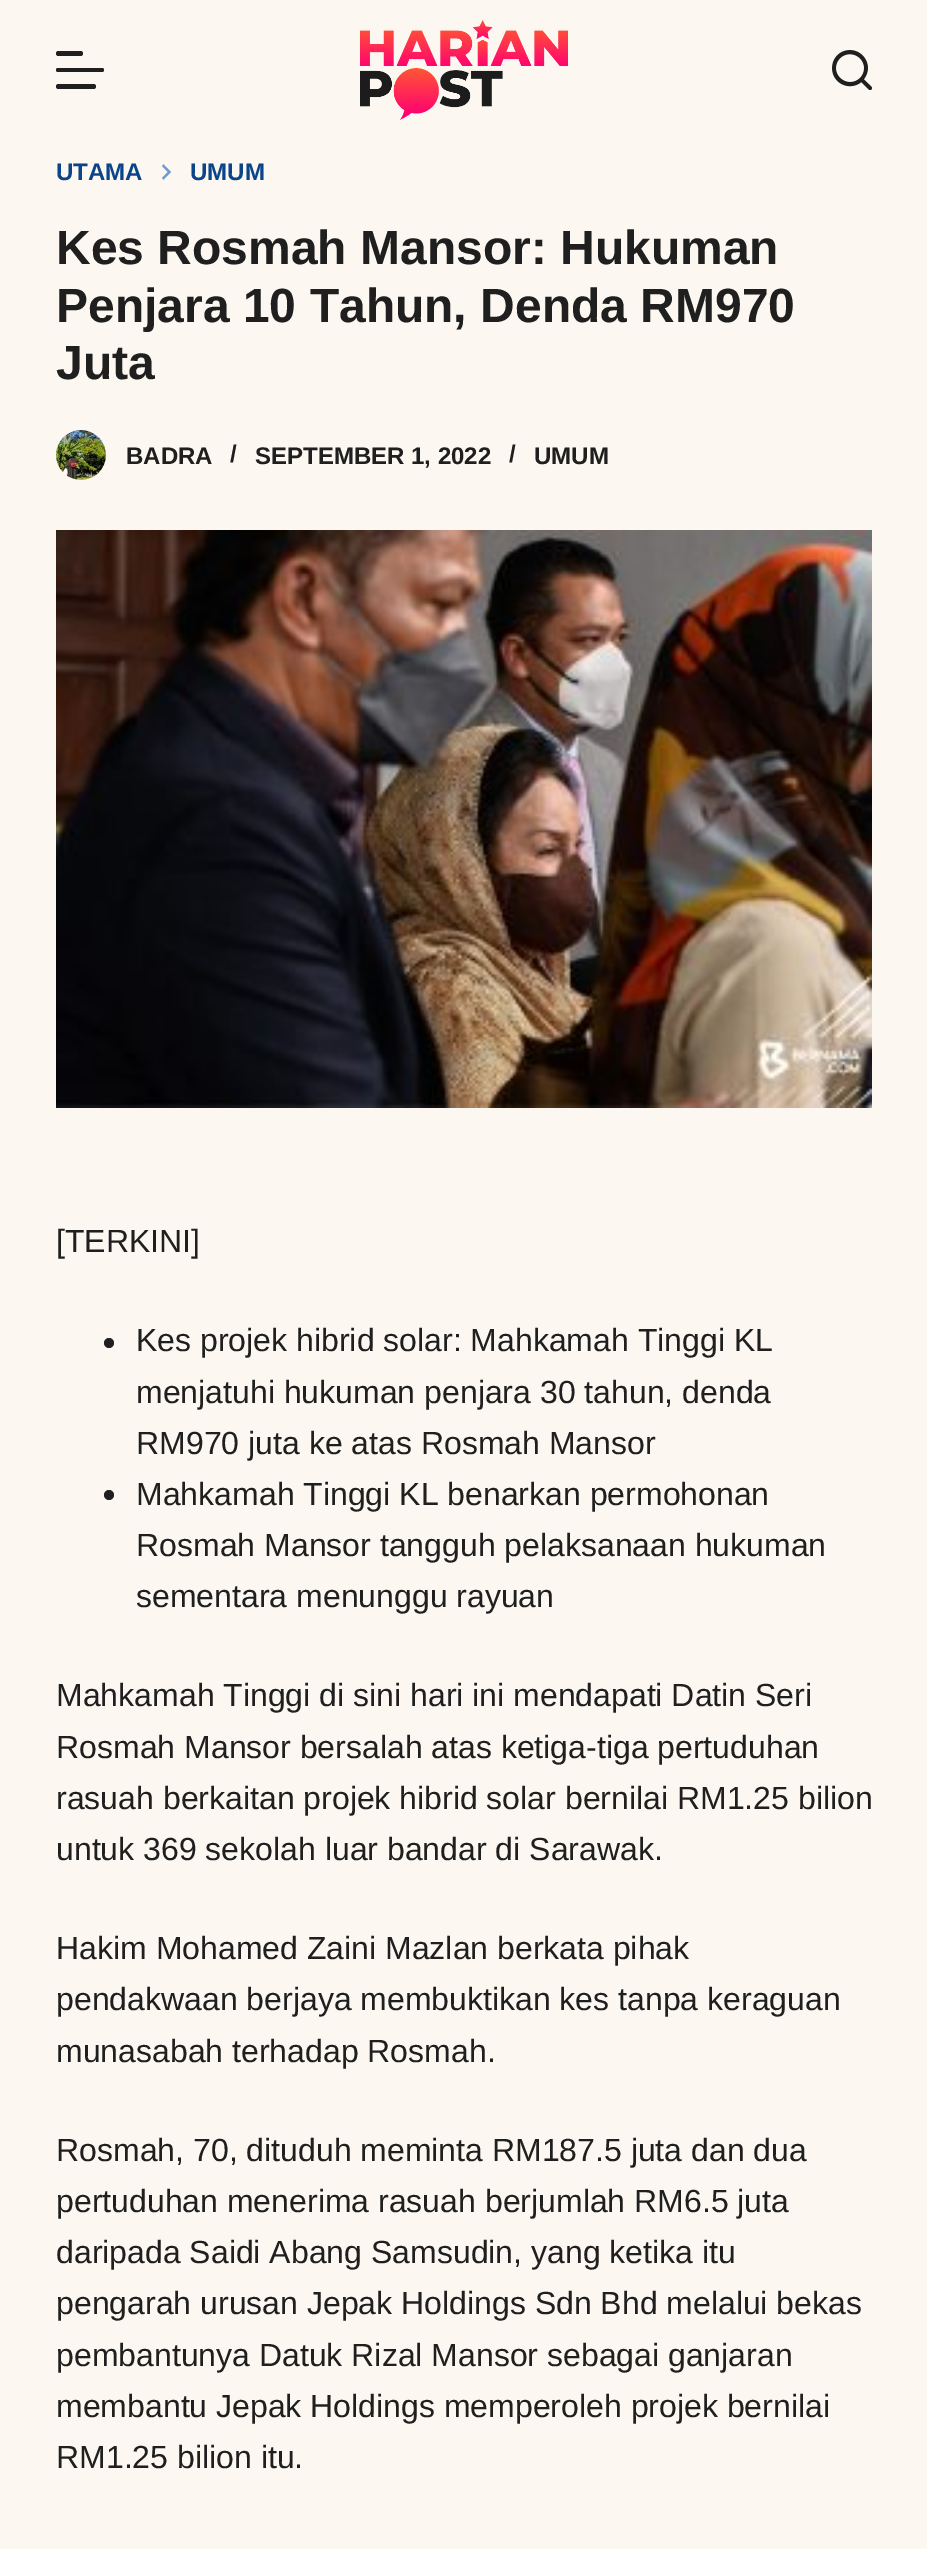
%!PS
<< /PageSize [927 2549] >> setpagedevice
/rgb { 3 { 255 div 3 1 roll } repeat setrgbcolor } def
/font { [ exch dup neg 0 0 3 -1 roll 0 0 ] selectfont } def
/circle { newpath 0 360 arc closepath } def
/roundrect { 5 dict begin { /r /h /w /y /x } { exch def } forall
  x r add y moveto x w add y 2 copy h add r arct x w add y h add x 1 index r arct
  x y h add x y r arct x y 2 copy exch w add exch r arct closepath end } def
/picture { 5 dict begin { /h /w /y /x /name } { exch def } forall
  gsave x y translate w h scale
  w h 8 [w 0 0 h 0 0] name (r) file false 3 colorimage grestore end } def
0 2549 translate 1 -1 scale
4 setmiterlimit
252 247 241 rgb
0 0 927 2549 rectfill
31 31 31 rgb
56 51 27 5 2.5 roundrect fill
56 68 48 4 2 roundrect fill
56 84 40 5 2.5 roundrect fill
(img/1.rgb) 360 20 208 100 picture
(img/2.rgb) 832 50 40 40 picture
(img/3.rgb) 162 164 10 16 picture
(img/4.rgb) 56 430 50 50 picture
(img/5.rgb) 56 530 816 578 picture
109 1343 5 circle fill
109 1495 5 circle fill
/LiberationSans-Bold 24 font
10 69 137 rgb
56 180 moveto (UTAMA) show
190 180 moveto (UMUM) show
/LiberationSans-Bold 48 font
31 31 31 rgb
[
  [(Kes Rosmah Mansor: Hukuman) 56 264]
  [(Penjara 10 Tahun, Denda RM970) 56 322]
  [(Juta) 56 379]
] { aload pop moveto show } forall
/LiberationSans-Bold 24 font
[
  [(BADRA) 126 464]
  [(/) 230 462]
  [(SEPTEMBER 1, 2022) 255 464]
  [(/) 509 462]
  [(UMUM) 534 464]
] { aload pop moveto show } forall
/LiberationSans-Regular 32 font
[
  [([TERKINI]) 56 1252]
  [(Kes projek hibrid solar: Mahkamah Tinggi KL) 136 1351]
  [(menjatuhi hukuman penjara 30 tahun, denda) 136 1403]
  [(RM970 juta ke atas Rosmah Mansor) 136 1454]
  [(Mahkamah Tinggi KL benarkan permohonan) 136 1505]
  [(Rosmah Mansor tangguh pelaksanaan hukuman) 136 1556]
  [(sementara menunggu rayuan) 136 1607]
  [(Mahkamah Tinggi di sini hari ini mendapati Datin Seri) 56 1706]
  [(Rosmah Mansor bersalah atas ketiga-tiga pertuduhan) 56 1758]
  [(rasuah berkaitan projek hibrid solar bernilai RM1.25 bilion) 56 1809]
  [(untuk 369 sekolah luar bandar di Sarawak.) 56 1860]
  [(Hakim Mohamed Zaini Mazlan berkata pihak) 56 1959]
  [(pendakwaan berjaya membuktikan kes tanpa keraguan) 56 2010]
  [(munasabah terhadap Rosmah.) 56 2062]
  [(Rosmah, 70, dituduh meminta RM187.5 juta dan dua) 56 2161]
  [(pertuduhan menerima rasuah berjumlah RM6.5 juta) 56 2212]
  [(daripada Saidi Abang Samsudin, yang ketika itu) 56 2263]
  [(pengarah urusan Jepak Holdings Sdn Bhd melalui bekas) 56 2314]
  [(pembantunya Datuk Rizal Mansor sebagai ganjaran) 56 2366]
  [(membantu Jepak Holdings memperoleh projek bernilai) 56 2417]
  [(RM1.25 bilion itu.) 56 2468]
] { aload pop moveto show } forall
showpage
